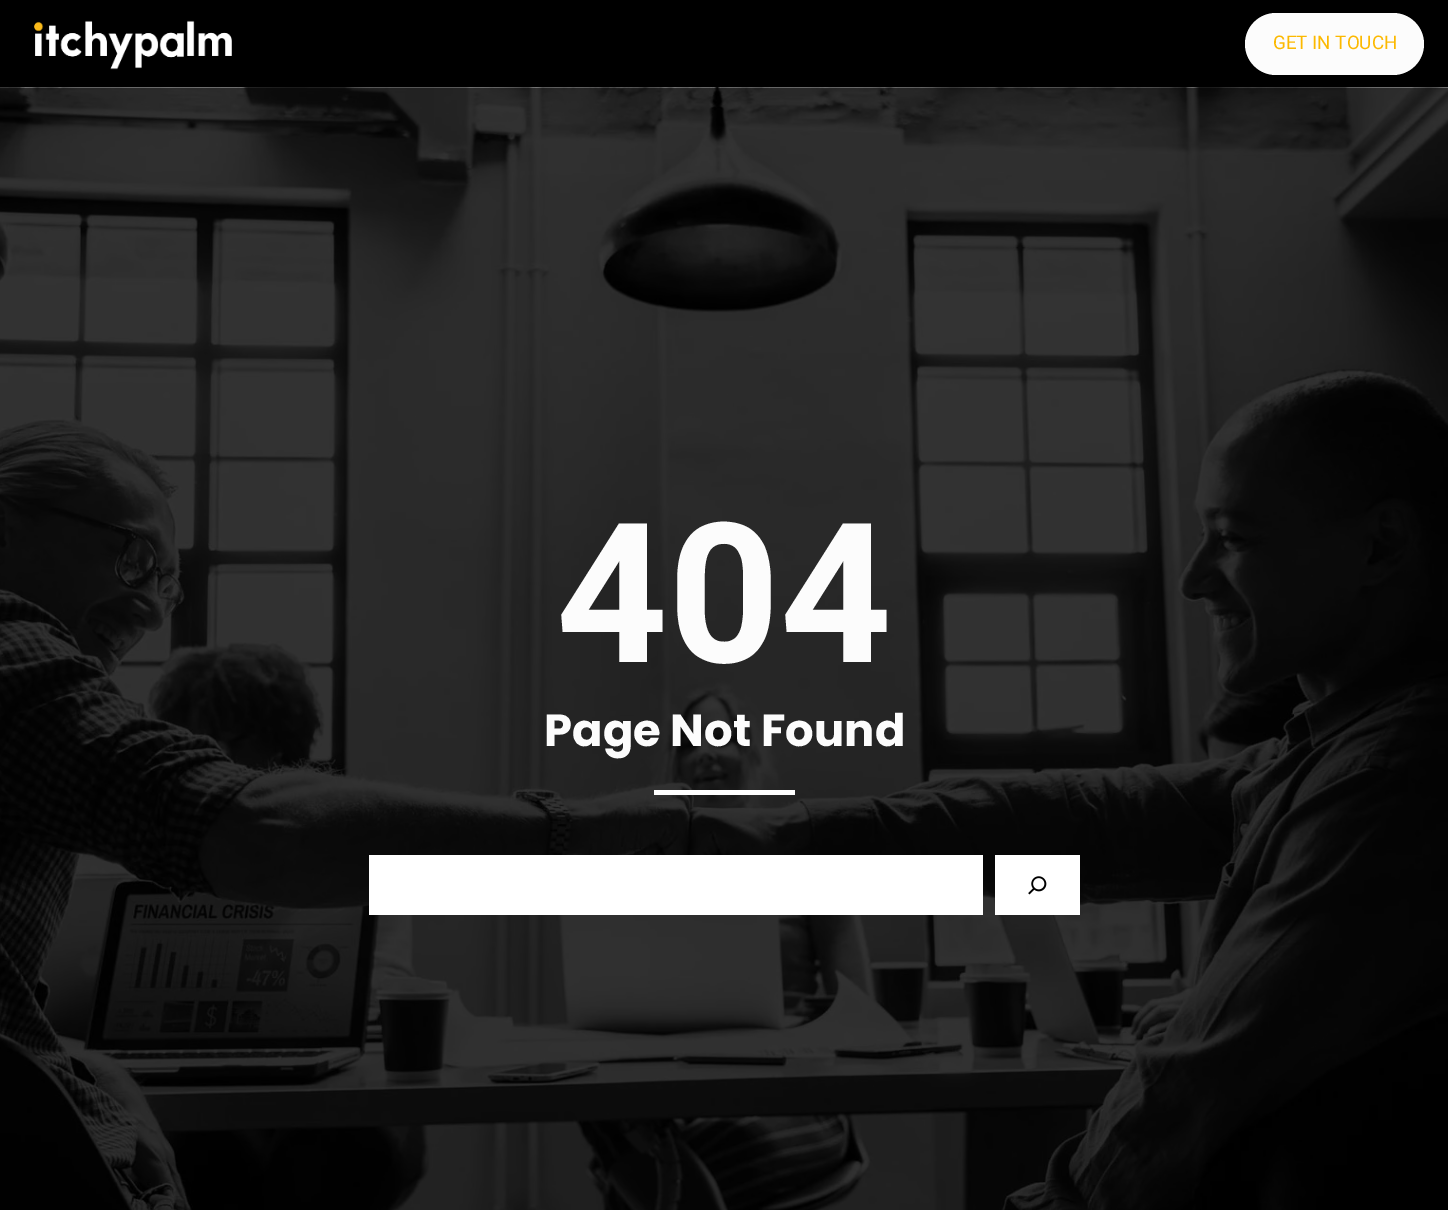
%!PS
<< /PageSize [1448 1210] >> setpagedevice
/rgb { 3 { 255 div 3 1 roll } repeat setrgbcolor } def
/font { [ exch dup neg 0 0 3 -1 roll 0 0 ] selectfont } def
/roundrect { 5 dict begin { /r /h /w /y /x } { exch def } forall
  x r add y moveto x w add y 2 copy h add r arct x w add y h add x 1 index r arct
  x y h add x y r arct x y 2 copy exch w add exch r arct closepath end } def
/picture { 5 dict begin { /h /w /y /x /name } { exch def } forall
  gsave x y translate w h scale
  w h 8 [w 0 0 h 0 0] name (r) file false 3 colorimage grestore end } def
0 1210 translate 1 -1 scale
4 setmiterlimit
0 0 0 rgb
0 0 1448 1210 rectfill
(img/1.rgb) 34 20 198 50 picture
252 252 252 rgb
1245 13 179 62 31 roundrect fill
(img/2.rgb) 0 87 1448 1123 picture
[
  [654 790 141 5 255 255 255]
  [369 855 614 60 255 255 255]
  [995 855 85 60 255 255 255]
] { aload pop rgb rectfill } forall
(img/3.rgb) 1028 876 19 19 picture
/Roboto-Regular 18.75 font
252 185 0 rgb
1273 49 moveto (GET IN TOUCH) show
/Heebo-Bold 195 font
252 252 252 rgb
556 662 moveto (404) show
/Poppins-Bold 45 font
544 746 moveto (Page Not Found) show
showpage
